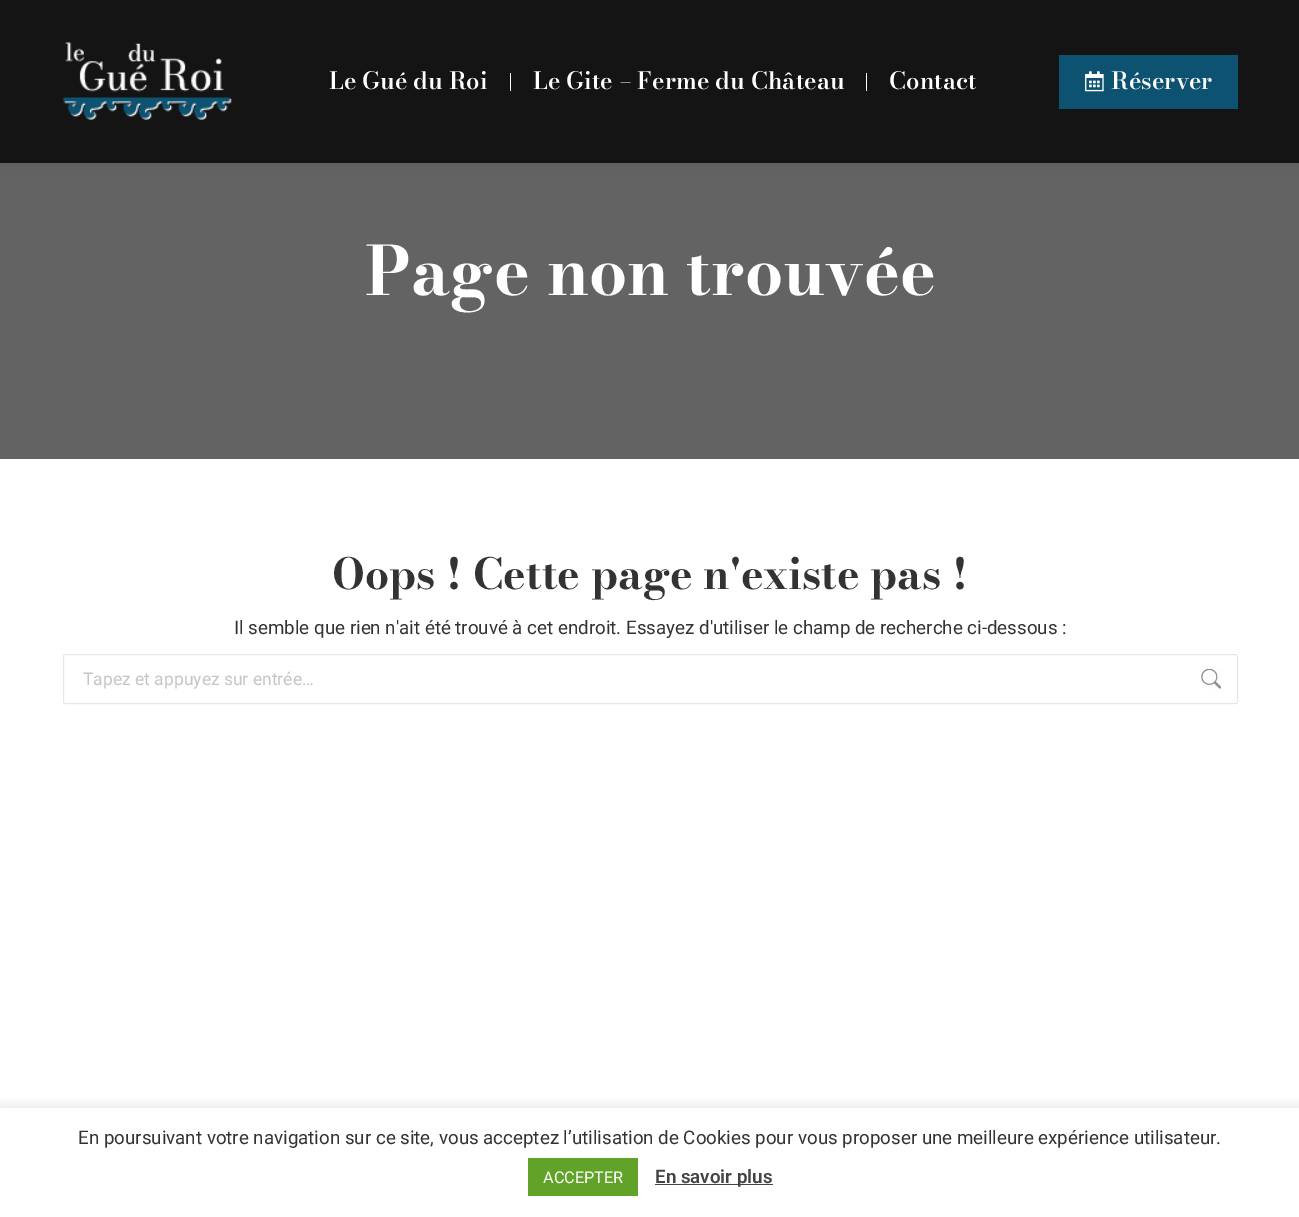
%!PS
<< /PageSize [1299 1217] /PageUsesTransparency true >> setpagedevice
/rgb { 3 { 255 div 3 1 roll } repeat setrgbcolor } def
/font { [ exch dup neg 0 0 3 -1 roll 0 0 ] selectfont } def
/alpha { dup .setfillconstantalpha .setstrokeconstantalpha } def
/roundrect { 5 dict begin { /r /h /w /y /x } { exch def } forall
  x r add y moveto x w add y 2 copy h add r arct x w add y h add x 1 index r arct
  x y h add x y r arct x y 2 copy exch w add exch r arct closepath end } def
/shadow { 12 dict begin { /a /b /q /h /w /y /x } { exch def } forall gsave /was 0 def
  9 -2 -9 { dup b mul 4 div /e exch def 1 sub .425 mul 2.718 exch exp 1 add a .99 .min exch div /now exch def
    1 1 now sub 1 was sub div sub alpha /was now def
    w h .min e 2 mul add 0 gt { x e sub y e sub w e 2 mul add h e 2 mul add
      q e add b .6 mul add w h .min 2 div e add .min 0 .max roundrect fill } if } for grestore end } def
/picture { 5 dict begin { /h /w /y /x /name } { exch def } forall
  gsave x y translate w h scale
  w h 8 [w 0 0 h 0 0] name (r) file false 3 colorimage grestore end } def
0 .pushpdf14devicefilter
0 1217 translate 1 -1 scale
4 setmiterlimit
255 255 255 rgb
0 0 1299 1217 rectfill
99 99 99 rgb
0 163 1299 296 rectfill
0 0 0 rgb
-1 -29 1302 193 0 9.5 0.07 shadow
20 20 20 rgb
0 0 1299 163 rectfill
(img/1.rgb) 62 42 170 78 picture
[
  [510 73 1 18 255 255 255]
  [866 73 1 18 255 255 255]
  [1059 55 179 54 13 82 112]
] { aload pop rgb rectfill } forall
(img/2.rgb) 1085 71 19 21 picture
231 231 231 rgb
63.5 654.5 1174 49 2 roundrect stroke
(img/3.rgb) 1201 669 20 20 picture
gsave
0 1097 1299 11 rectclip
172 171 171 rgb
0 1106 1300 110 0 6 0.3 shadow
grestore
97 162 41 rgb
528 1158 110 38 rectfill
68 68 68 rgb
655 1184 118 1 rectfill
/BodoniModa-SemiBold 23.75 font
255 255 255 rgb
[
  [(Le Gué du Roi) 329 89]
  [(Le Gite – Ferme du Château) 533 89]
  [(Contact) 889 89]
  [(Réserver) 1111 89]
] { aload pop moveto show } forall
/BodoniModa-Bold 67.5 font
365 295 moveto (Page non trouvée) show
/BodoniModa-Bold 42.5 font
51 51 51 rgb
332 589 moveto (Oops ! Cette page n'existe pas !) show
/Roboto-Regular 18.75 font
234 634 moveto (Il semble que rien n'ait été trouvé à cet endroit. Essayez d'utiliser le champ de recherche ci-dessous :) show
/Roboto-Regular 17.5 font
196 197 201 rgb
83 685 moveto (Tapez et appuyez sur entrée…) show
/Roboto-Regular 18.75 font
51 51 51 rgb
78 1144 moveto (En poursuivant votre navigation sur ce site, vous acceptez l’utilisation de Cookies pour vous proposer une meilleure expérience utilisateur.) show
/Roboto-Regular 16.25 font
255 255 255 rgb
543 1183 moveto (ACCEPTER) show
/Roboto-SemiBold 18.75 font
68 68 68 rgb
655 1183 moveto (En savoir plus) show
.poppdf14devicefilter showpage
